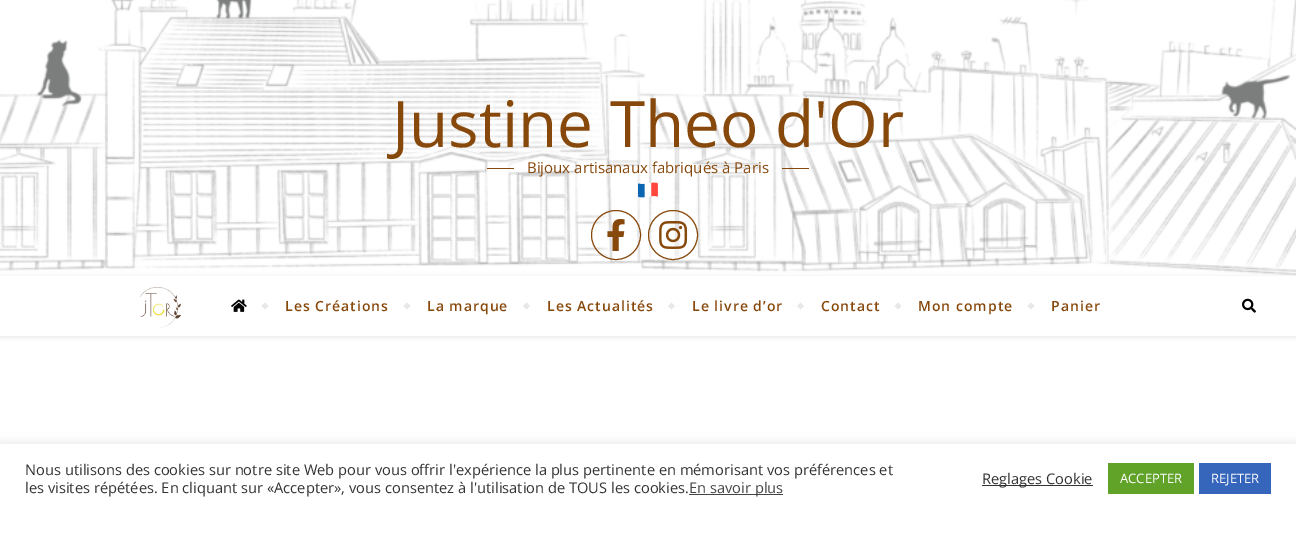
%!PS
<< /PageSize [1296 539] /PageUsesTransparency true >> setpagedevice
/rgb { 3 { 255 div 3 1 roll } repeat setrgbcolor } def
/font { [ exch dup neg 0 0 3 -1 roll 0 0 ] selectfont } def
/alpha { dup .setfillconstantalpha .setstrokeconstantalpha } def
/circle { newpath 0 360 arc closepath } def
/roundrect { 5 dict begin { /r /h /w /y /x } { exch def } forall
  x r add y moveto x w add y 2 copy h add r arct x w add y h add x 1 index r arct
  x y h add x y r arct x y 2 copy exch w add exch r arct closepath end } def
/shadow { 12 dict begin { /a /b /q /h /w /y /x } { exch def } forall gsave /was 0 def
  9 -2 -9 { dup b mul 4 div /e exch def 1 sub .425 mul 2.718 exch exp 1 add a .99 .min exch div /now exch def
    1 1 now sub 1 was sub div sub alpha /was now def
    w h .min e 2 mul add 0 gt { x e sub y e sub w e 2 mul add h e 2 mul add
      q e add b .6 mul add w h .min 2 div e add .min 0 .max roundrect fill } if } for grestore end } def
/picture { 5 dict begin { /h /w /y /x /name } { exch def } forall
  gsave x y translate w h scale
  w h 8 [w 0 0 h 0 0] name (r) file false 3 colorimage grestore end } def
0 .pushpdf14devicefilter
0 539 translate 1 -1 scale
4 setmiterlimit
255 255 255 rgb
0 0 1296 539 rectfill
(img/1.rgb) 0 0 1296 276 picture
135 72 12 rgb
487 168 27 1 rectfill
782 168 27 1 rectfill
(img/2.rgb) 638 182 20 16 picture
616 235 24.5 circle stroke
(img/3.rgb) 607 219 18 32 picture
673 235 24.5 circle stroke
(img/4.rgb) 659 221 29 28 picture
gsave
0 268 moveto 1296 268 lineto 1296 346 lineto 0 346 lineto closepath 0 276 moveto 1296 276 lineto 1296 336 lineto 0 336 lineto closepath eoclip newpath
0 0 0 rgb
0 277 1296 60 0 2.5 0.1 shadow
grestore
(img/5.rgb) 140 287 41 41 picture
(img/6.rgb) 231 299 16 13 picture
232 232 232 rgb
261.5 306 moveto 265 302.5 lineto 268.5 306 lineto 265 309.5 lineto closepath fill
403.5 306 moveto 407 302.5 lineto 410.5 306 lineto 407 309.5 lineto closepath fill
523 306 moveto 526.5 302.5 lineto 530 306 lineto 526.5 309.5 lineto closepath fill
668 306 moveto 671.5 302.5 lineto 675 306 lineto 671.5 309.5 lineto closepath fill
797 306 moveto 800.5 302.5 lineto 804 306 lineto 800.5 309.5 lineto closepath fill
894.5 306 moveto 898 302.5 lineto 901.5 306 lineto 898 309.5 lineto closepath fill
1027.5 306 moveto 1031 302.5 lineto 1034.5 306 lineto 1031 309.5 lineto closepath fill
(img/7.rgb) 1242 298 14 15 picture
172 171 171 rgb
0 443 1296 95 0 5 0.3 shadow
[
  [0 444 1296 95 255 255 255]
  [689 494 94 1 68 68 68]
  [982 485 111 1 51 51 51]
  [1108 463 86 31 97 162 41]
  [1199 463 72 31 53 102 187]
] { aload pop rgb rectfill } forall
/OpenSans-Regular 64 font
135 72 12 rgb
392 147 moveto (Justine Theo d'Or) show
/OpenSans-Regular 15 font
527 173 moveto (Bijoux artisanaux fabriqués à Paris) show
/OpenSans-SemiBold 14 font
285 311 moveto 1 0 (Les Créations) ashow
427 311 moveto 1 0 (La marque) ashow
547 311 moveto 1 0 (Les Actualités) ashow
692 311 moveto 1 0 (Le livre d’or) ashow
821 311 moveto 1 0 (Contact) ashow
918 311 moveto 1 0 (Mon compte) ashow
1051 311 moveto 1 0 (Panier) ashow
/OpenSans-Regular 14.67 font
51 51 51 rgb
25 475 moveto (Nous utilisons des cookies sur notre site Web pour vous offrir l'expérience la plus pertinente en mémorisant vos préférences et) show
25 493 moveto (les visites répétées. En cliquant sur «Accepter», vous consentez à l'utilisation de TOUS les cookies.) show
68 68 68 rgb
689 493 moveto (En savoir plus) show
51 51 51 rgb
982 484 moveto (Reglages Cookie) show
/OpenSans-Regular 13 font
255 255 255 rgb
1120 483 moveto (ACCEPTER) show
1211 483 moveto (REJETER) show
.poppdf14devicefilter showpage
